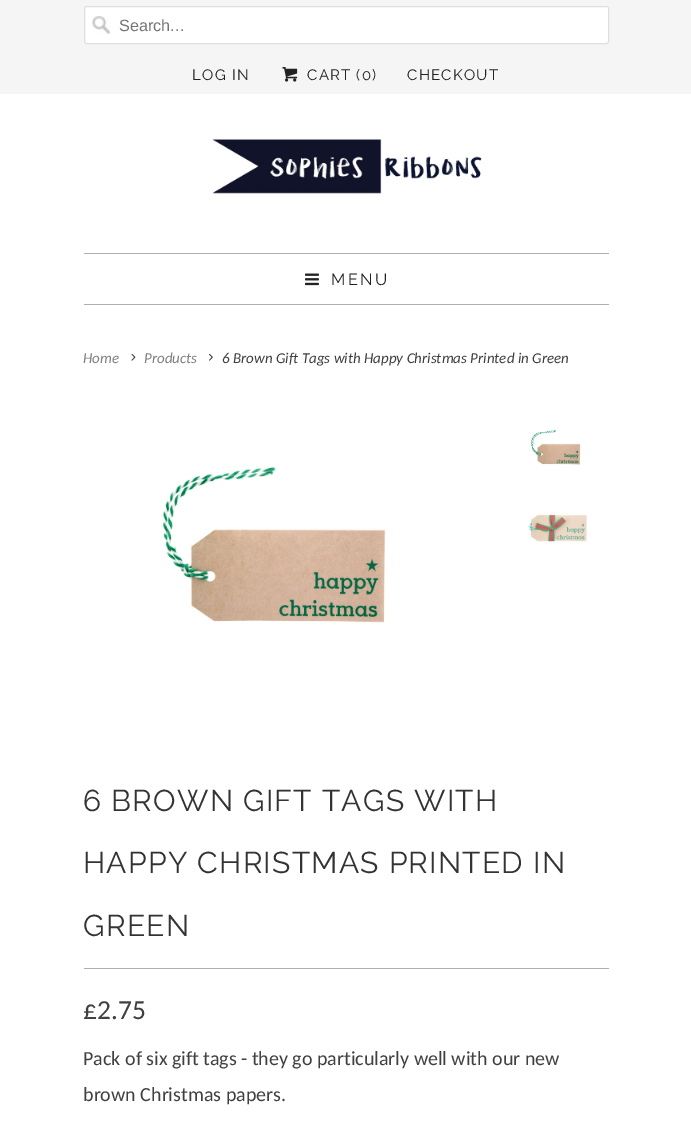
%!PS
<< /PageSize [691 1122] >> setpagedevice
/rgb { 3 { 255 div 3 1 roll } repeat setrgbcolor } def
/font { [ exch dup neg 0 0 3 -1 roll 0 0 ] selectfont } def
/roundrect { 5 dict begin { /r /h /w /y /x } { exch def } forall
  x r add y moveto x w add y 2 copy h add r arct x w add y h add x 1 index r arct
  x y h add x y r arct x y 2 copy exch w add exch r arct closepath end } def
/picture { 5 dict begin { /h /w /y /x /name } { exch def } forall
  gsave x y translate w h scale
  w h 8 [w 0 0 h 0 0] name (r) file false 3 colorimage grestore end } def
0 1122 translate 1 -1 scale
4 setmiterlimit
255 255 255 rgb
0 0 691 1122 rectfill
245 245 245 rgb
0 0 691 94 rectfill
255 255 255 rgb
84 6 525 38 2.5 roundrect fill
(img/1.rgb) 92 16 18 18 picture
223 223 223 rgb
84.5 6.5 524 37 2 roundrect stroke
(img/2.rgb) 282 67 16 15 picture
(img/3.rgb) 212 139 270 55 picture
174 174 176 rgb
84 253 525 1 rectfill
84 304 525 1 rectfill
(img/4.rgb) 305 273 14 13 picture
(img/5.rgb) 131 353 5 8 picture
(img/6.rgb) 209 353 4 8 picture
(img/7.rgb) 162 467 224 156 picture
(img/8.rgb) 530 430 51 35 picture
(img/9.rgb) 528 514 59 28 picture
84 968 525 1 rectfill
/LiberationSans-Regular 16.25 font
117 117 117 rgb
119 31 moveto (Search...) show
/Raleway-Regular 15 font
34 34 34 rgb
192 80 moveto 1.25 0 (LOG IN) ashow
307 80 moveto 1.25 0 (CART \(0\)) ashow
407 80 moveto 1.25 0 (CHECKOUT) ashow
/Raleway-Regular 16.25 font
331 285 moveto 2.5 0 (MENU) ashow
/Carlito-Italic 15 font
128 128 128 rgb
83 363 moveto (Home) show
144 363 moveto (Products) show
64 64 64 rgb
222 363 moveto (6 Brown Gift Tags with Happy Christmas Printed in Green) show
/Raleway-Regular 30 font
51 51 51 rgb
83 811 moveto 1.25 0 (6 BROWN GIFT TAGS WITH) ashow
83 873 moveto 1.25 0 (HAPPY CHRISTMAS PRINTED IN) ashow
83 936 moveto 1.25 0 (GREEN) ashow
/Carlito-Regular 27.5 font
64 64 64 rgb
83 1019 moveto (£2.75) show
/Carlito-Regular 20 font
83 1065 moveto (Pack of six gift tags - they go particularly well with our new) show
83 1101 moveto (brown Christmas papers.) show
showpage
